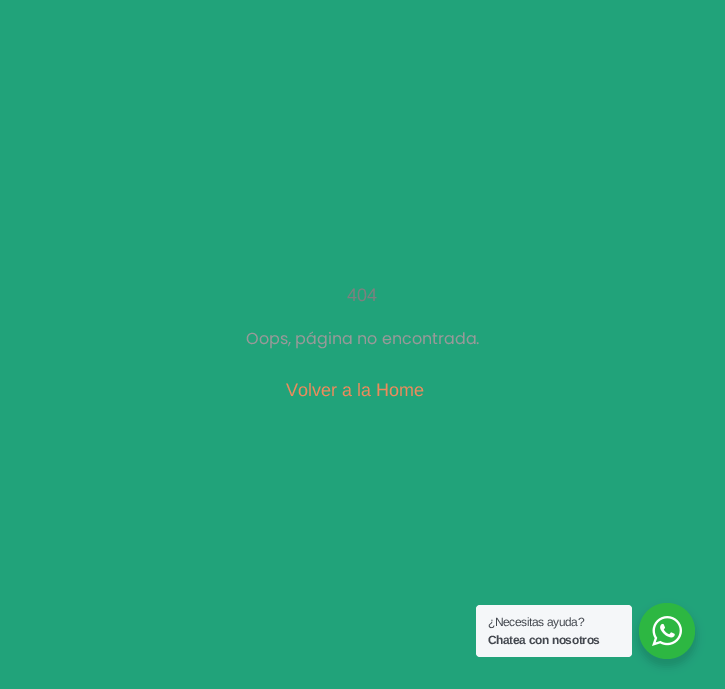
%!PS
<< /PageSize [725 689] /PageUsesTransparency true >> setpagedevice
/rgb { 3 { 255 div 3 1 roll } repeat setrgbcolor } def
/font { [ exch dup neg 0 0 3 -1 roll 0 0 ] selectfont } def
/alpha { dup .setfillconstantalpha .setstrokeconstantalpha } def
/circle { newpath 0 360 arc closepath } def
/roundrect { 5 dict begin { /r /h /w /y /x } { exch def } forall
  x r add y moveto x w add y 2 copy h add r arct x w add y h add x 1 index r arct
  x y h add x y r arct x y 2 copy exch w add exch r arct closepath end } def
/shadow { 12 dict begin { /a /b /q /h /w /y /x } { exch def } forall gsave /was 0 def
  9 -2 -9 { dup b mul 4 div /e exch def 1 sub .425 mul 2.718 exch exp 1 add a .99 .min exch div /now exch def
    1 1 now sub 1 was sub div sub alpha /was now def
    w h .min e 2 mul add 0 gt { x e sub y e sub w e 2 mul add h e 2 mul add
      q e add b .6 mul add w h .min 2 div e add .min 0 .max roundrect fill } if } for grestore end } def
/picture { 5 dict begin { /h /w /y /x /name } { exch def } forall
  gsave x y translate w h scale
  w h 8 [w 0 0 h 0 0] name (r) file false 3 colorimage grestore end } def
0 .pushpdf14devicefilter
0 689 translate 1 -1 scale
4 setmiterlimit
33 163 122 rgb
0 0 725 689 rectfill
0 0 0 rgb
637 607 60 60 30 4 0.14 shadow
245 247 249 rgb
476 605 156 52 4 roundrect fill
45 183 66 rgb
667 631 28 circle fill
(img/1.rgb) 652 616 30 30 picture
/LiberationSans-Regular 18 font
127 127 127 rgb
347 301 moveto (404) show
/Poppins-Regular 16 font
153 153 153 rgb
246 344 moveto (Oops, página no encontrada.) show
/LiberationSans-Regular 18 font
237 139 92 rgb
286 396 moveto (Volver a la Home) show
/LiberationSans-Regular 12 font
67 71 78 rgb
488 626 moveto -0.4 0 (¿Necesitas ayuda?) ashow
/LiberationSans-Bold 12 font
488 644 moveto -0.4 0 (Chatea con nosotros) ashow
.poppdf14devicefilter showpage
